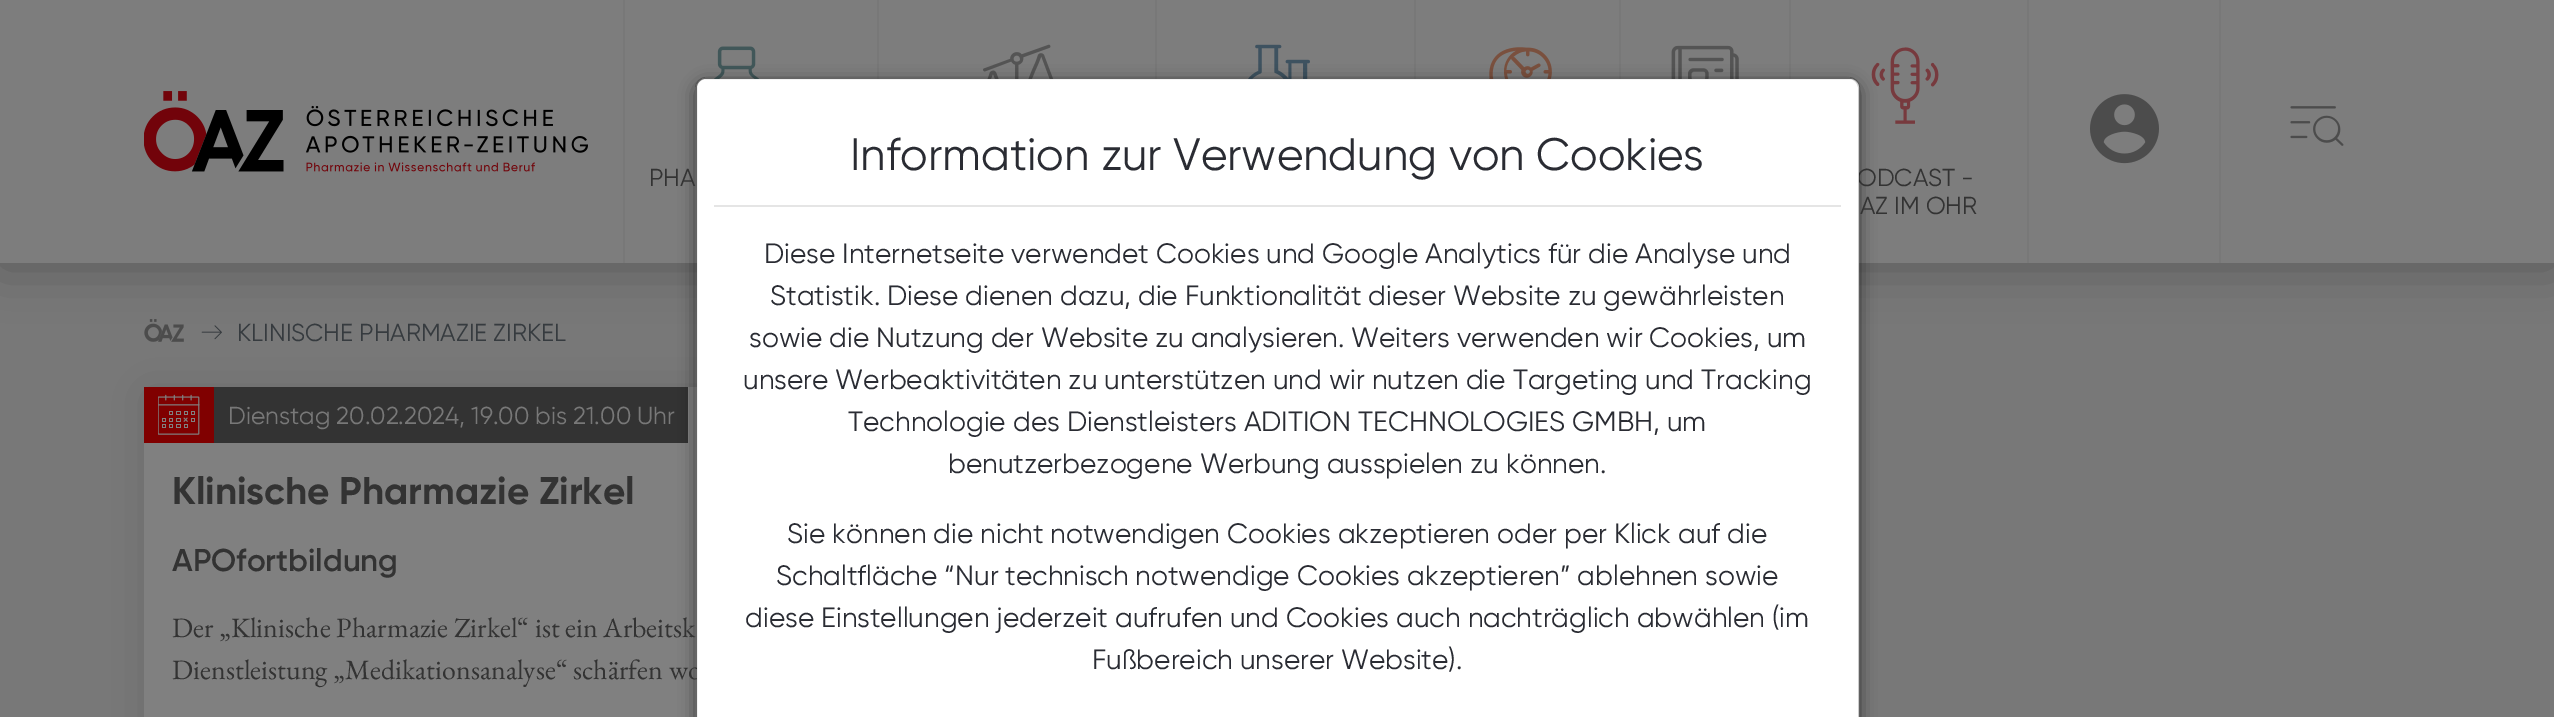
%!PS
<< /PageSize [2554 717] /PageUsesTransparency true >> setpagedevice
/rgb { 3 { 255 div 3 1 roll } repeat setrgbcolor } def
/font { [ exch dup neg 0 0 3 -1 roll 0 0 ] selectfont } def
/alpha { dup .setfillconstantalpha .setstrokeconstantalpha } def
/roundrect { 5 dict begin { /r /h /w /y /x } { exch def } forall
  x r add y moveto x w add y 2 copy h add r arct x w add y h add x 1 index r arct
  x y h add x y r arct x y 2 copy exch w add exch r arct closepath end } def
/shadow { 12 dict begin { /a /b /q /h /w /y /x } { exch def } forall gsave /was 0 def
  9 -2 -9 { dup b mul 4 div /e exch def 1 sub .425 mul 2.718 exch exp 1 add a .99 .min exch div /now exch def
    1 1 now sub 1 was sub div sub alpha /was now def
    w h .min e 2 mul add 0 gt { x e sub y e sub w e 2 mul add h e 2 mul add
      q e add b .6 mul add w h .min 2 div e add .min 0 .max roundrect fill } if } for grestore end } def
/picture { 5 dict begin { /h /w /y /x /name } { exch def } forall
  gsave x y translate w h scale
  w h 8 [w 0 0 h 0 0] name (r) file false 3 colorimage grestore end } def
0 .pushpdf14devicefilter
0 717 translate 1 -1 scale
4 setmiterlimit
120 120 120 rgb
0 0 2554 717 rectfill
(img/10.rgb) 144 319 40 23 picture
(img/11.rgb) 201 325 21 15 picture
0 0 0 rgb
0 4 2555 262 0 26 0.26 shadow
125 125 125 rgb
0 0 2554 263 rectfill
120 120 120 rgb
877 0 2 79 rectfill
(img/4.rgb) 983 44 71 35 picture
1155 0 2 79 rectfill
(img/5.rgb) 1248 44 62 35 picture
1414 0 2 79 rectfill
(img/6.rgb) 1489 47 63 32 picture
1619 0 2 79 rectfill
(img/7.rgb) 1671 45 68 34 picture
(img/8.rgb) 714 46 45 33 picture
1789 0 2 79 rectfill
(img/9.rgb) 1871 47 68 77 picture
0 0 0 rgb
144 390 1498 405 0 26 0.14 shadow
[
  [688 387 9 56 128 128 128]
  [214 387 474 56 51 51 51]
  [144 443 553 274 128 128 128]
] { aload pop rgb rectfill } forall
gsave
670 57 moveto 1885 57 lineto 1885 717 lineto 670 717 lineto closepath 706 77 moveto 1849 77 lineto 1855 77 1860 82 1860 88 curveto 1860 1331 lineto 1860 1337 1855 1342 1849 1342 curveto 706 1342 lineto 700 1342 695 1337 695 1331 curveto 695 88 lineto 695 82 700 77 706 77 curveto closepath eoclip newpath
0 0 0 rgb
695 82 1165 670 11 8 0.5 shadow
grestore
(img/1.rgb) 144 91 444 81 picture
120 120 120 rgb
2027 0 2 263 rectfill
(img/2.rgb) 2090 94 69 70 picture
2219 0 2 263 rectfill
(img/3.rgb) 2290 106 54 40 picture
623 0 2 263 rectfill
128 0 0 rgb
144 387 70 56 rectfill
(img/12.rgb) 158 394 42 41 picture
/Gilroy-Regular 24.5 font
51 51 51 rgb
[
  [(PHA) 649 186]
  [(ODCAST -) 1857 186]
  [(AZ IM OHR) 1860 214]
] { aload pop moveto show } forall
54 59 63 rgb
237 341 moveto (KLINISCHE PHARMAZIE ZIRKEL) show
120 120 120 rgb
228 424 moveto (Dienstag 20.02.2024, 19.00 bis 21.00 Uhr) show
/Gilroy-Bold 38.5 font
51 51 51 rgb
172 504 moveto (Klinische Pharmazie Zirkel) show
/Gilroy-SemiBold 31.5 font
172 571 moveto (APOfortbildung) show
/EBGaramond-Regular 28 font
172 637 moveto (Der „Klinische Pharmazie Zirkel“ ist ein Arbeitsk) show
172 679 moveto (Dienstleistung „Medikationsanalyse“ schärfen wo) show
255 255 255 rgb
706 79 moveto 1850 79 lineto 1855 79 1859 83 1859 88 curveto 1859 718 lineto 697 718 lineto 697 88 lineto 697 83 701 79 706 79 curveto closepath fill
0.2 alpha
0 0 0 rgb
2 setlinewidth
696 78 1163 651 10 roundrect stroke
/Gilroy-Regular 28 font
1 alpha
42 44 51 rgb
[
  [(Fußbereich unserer Website\).) 1092 669]
  [(diese Einstellungen jederzeit aufrufen und Cookies auch nachträglich abwählen \(im) 745 627]
  [(Schaltfläche “Nur technisch notwendige Cookies akzeptieren” ablehnen sowie) 776 585]
  [(Sie können die nicht notwendigen Cookies akzeptieren oder per Klick auf die) 787 543]
  [(benutzerbezogene Werbung ausspielen zu können.) 948 473]
  [(Technologie des Dienstleisters ADITION TECHNOLOGIES GMBH, um) 848 431]
  [(unsere Werbeaktivitäten zu unterstützen und wir nutzen die Targeting und Tracking) 743 389]
  [(sowie die Nutzung der Website zu analysieren. Weiters verwenden wir Cookies, um) 749 347]
  [(Statistik. Diese dienen dazu, die Funktionalität dieser Website zu gewährleisten) 770 305]
  [(Diese Internetseite verwendet Cookies und Google Analytics für die Analyse und) 764 263]
] { aload pop moveto show } forall
/Gilroy-Regular 45.5 font
850 170 moveto (Information zur Verwendung von Cookies) show
229 229 229 rgb
714 205 1127 2 rectfill
.poppdf14devicefilter showpage
